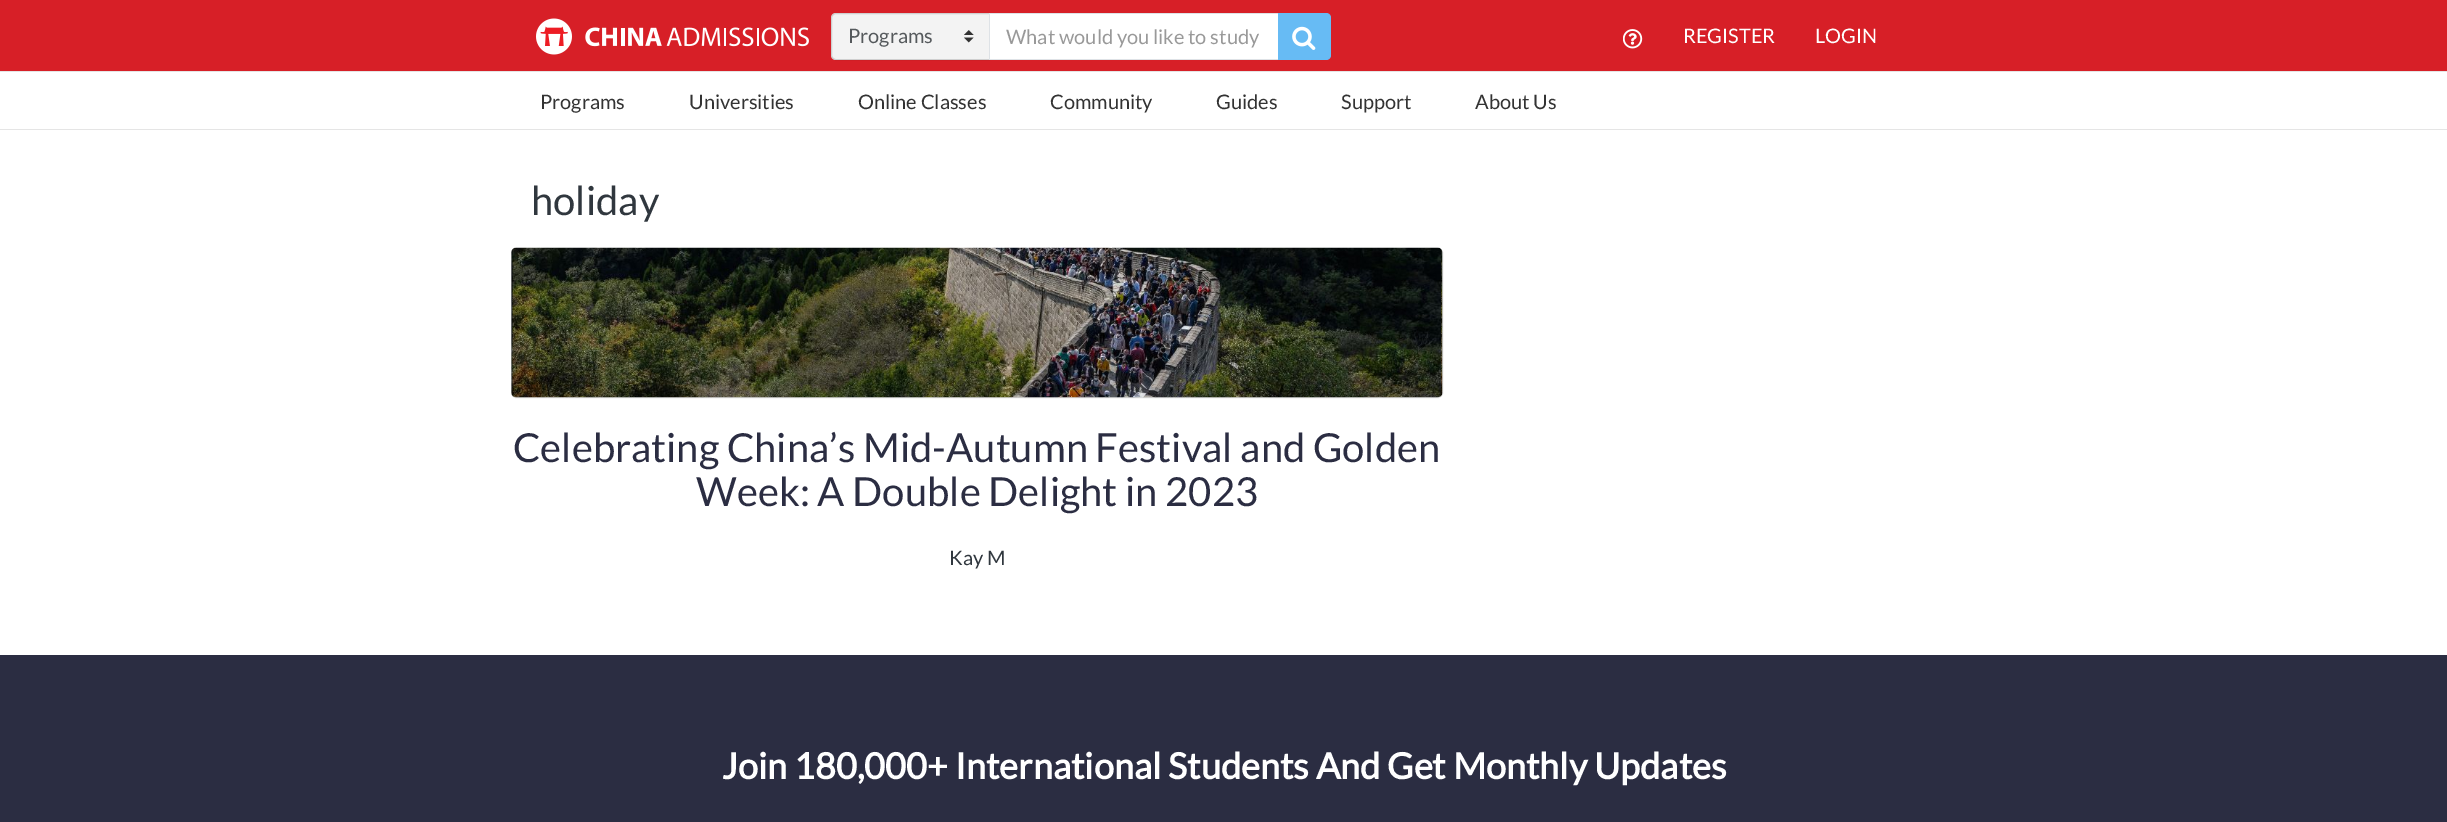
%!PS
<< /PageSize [2447 822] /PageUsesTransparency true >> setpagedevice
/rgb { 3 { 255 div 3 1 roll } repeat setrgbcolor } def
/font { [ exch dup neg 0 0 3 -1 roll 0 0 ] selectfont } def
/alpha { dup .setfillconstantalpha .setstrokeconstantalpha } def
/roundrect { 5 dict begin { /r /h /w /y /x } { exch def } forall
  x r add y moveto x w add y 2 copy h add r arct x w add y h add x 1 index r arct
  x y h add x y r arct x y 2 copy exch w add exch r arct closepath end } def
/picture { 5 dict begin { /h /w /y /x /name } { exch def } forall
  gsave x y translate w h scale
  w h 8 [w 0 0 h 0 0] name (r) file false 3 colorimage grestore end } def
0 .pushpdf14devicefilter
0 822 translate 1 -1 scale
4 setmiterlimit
255 255 255 rgb
0 0 2447 822 rectfill
215 31 39 rgb
0 0 2447 71 rectfill
(img/1.rgb) 536 18 273 37 picture
243 243 243 rgb
836 13 moveto 990 13 lineto 990 60 lineto 836 60 lineto 833 60 831 58 831 55 curveto 831 18 lineto 831 15 833 13 836 13 curveto closepath fill
(img/2.rgb) 964 30 10 13 picture
0.15 alpha
0 0 0 rgb
836 13.5 moveto 989.5 13.5 lineto 989.5 59.5 lineto 836 59.5 lineto 833.5 59.5 831.5 57.5 831.5 55 curveto 831.5 18 lineto 831.5 15.5 833.5 13.5 836 13.5 curveto closepath stroke
1 alpha
103 187 244 rgb
1276 13 moveto 1326 13 lineto 1329 13 1331 15 1331 18 curveto 1331 55 lineto 1331 58 1329 60 1326 60 curveto 1276 60 lineto closepath fill
[
  [990 14 288 45 255 255 255]
  [989 13 289 1 222 226 230]
  [989 59 289 1 222 226 230]
  [989 13 1 47 222 226 230]
] { aload pop rgb rectfill } forall
(img/3.rgb) 1292 26 24 24 picture
(img/4.rgb) 1623 29 20 20 picture
229 229 229 rgb
0 71 2447 1 rectfill
0 129 2447 1 rectfill
(img/5.rgb) 511 247 932 151 picture
0.12 alpha
0 0 0 rgb
511.5 248.5 931 149 4.5 roundrect stroke
1 alpha
43 45 66 rgb
0 655 2447 167 rectfill
/Lato-Regular 20 font
85 89 92 rgb
848 43 moveto (Programs) show
153 153 153 rgb
1006 44 moveto (What would you like to study) show
255 255 255 rgb
1683 43 moveto (REGISTER) show
1815 43 moveto (LOGIN) show
51 51 51 rgb
[
  [(Programs) 540 109]
  [(Universities) 689 109]
  [(Online Classes) 858 109]
  [(Community) 1050 109]
  [(Guides) 1216 109]
  [(Support) 1341 109]
  [(About Us) 1475 109]
] { aload pop moveto show } forall
/Lato-Regular 40 font
48 55 62 rgb
531 215 moveto (holiday) show
43 45 66 rgb
513 462 moveto (Celebrating China’s Mid-Autumn Festival and Golden) show
696 506 moveto (Week: A Double Delight in 2023) show
/Lato-Regular 20 font
48 55 62 rgb
949 565 moveto (Kay M) show
/Lato-Bold 36 font
255 255 255 rgb
722 779 moveto (Join 180,000+ International Students And Get Monthly Updates) show
.poppdf14devicefilter showpage
